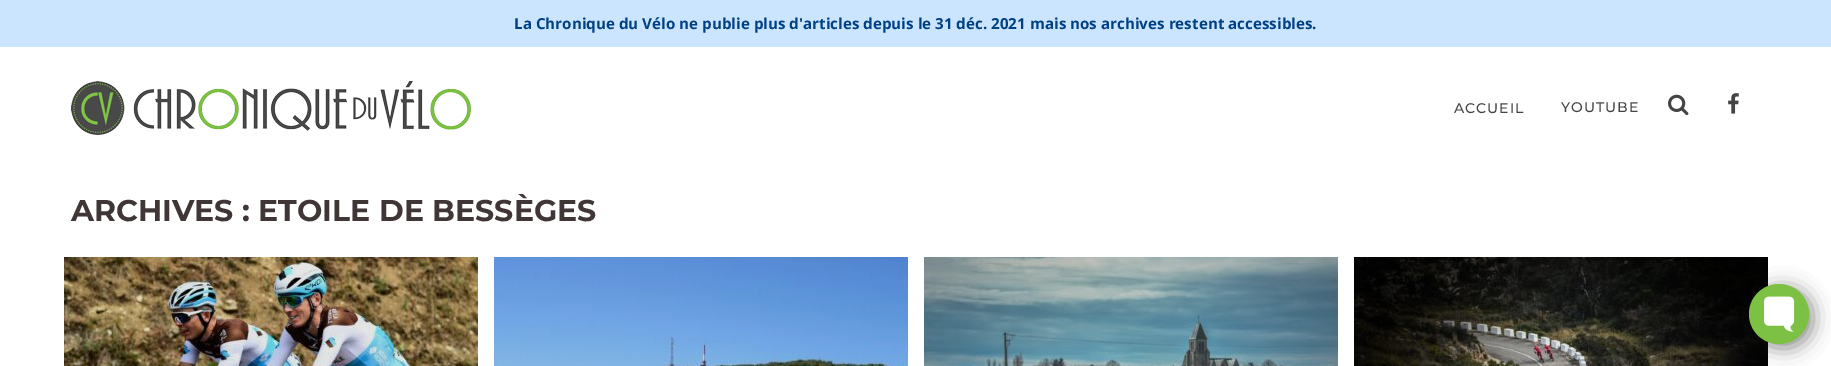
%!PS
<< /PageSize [1831 366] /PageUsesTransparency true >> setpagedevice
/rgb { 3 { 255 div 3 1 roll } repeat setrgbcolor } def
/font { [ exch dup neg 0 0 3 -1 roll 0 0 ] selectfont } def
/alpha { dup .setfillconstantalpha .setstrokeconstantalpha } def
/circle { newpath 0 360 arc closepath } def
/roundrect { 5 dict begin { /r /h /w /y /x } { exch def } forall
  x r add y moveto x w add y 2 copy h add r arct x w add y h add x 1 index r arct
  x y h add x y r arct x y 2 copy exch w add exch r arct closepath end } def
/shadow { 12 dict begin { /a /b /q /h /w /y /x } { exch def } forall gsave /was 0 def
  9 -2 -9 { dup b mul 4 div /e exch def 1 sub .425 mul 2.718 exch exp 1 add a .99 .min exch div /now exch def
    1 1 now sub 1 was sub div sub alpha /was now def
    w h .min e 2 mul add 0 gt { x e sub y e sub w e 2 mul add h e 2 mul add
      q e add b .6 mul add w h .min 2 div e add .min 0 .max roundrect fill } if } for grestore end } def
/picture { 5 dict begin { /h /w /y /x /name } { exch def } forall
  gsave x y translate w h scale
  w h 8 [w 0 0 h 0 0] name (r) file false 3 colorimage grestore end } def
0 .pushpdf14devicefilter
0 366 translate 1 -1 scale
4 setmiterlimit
255 255 255 rgb
0 0 1831 366 rectfill
204 229 255 rgb
0 0 1831 47 rectfill
(img/1.rgb) 71 81 400 54 picture
(img/2.rgb) 1668 94 21 22 picture
(img/3.rgb) 1728 93 11 21 picture
(img/4.rgb) 64 257 414 109 picture
(img/5.rgb) 494 257 414 109 picture
(img/6.rgb) 924 257 414 109 picture
(img/7.rgb) 1354 257 414 109 picture
22 22 22 rgb
1753 288 60 60 30 10 0.5 shadow
124 193 68 rgb
1779 314 30 circle fill
(img/8.rgb) 1764 296 31 36 picture
/OpenSans-Bold 15.2 font
0 64 133 rgb
514 29 moveto (La Chronique du Vélo ne publie plus d'articles depuis le 31 déc. 2021 mais nos archives restent accessibles.) show
/Montserrat-Thin 14 font
68 68 68 rgb
1454 113 moveto 1 0 (ACCUEIL) ashow
1561 112 moveto 1 0 (YOUTUBE) ashow
/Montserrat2-Thin 30 font
64 54 54 rgb
71 221 moveto (ARCHIVES : ETOILE DE BESSÈGES) show
.poppdf14devicefilter showpage
